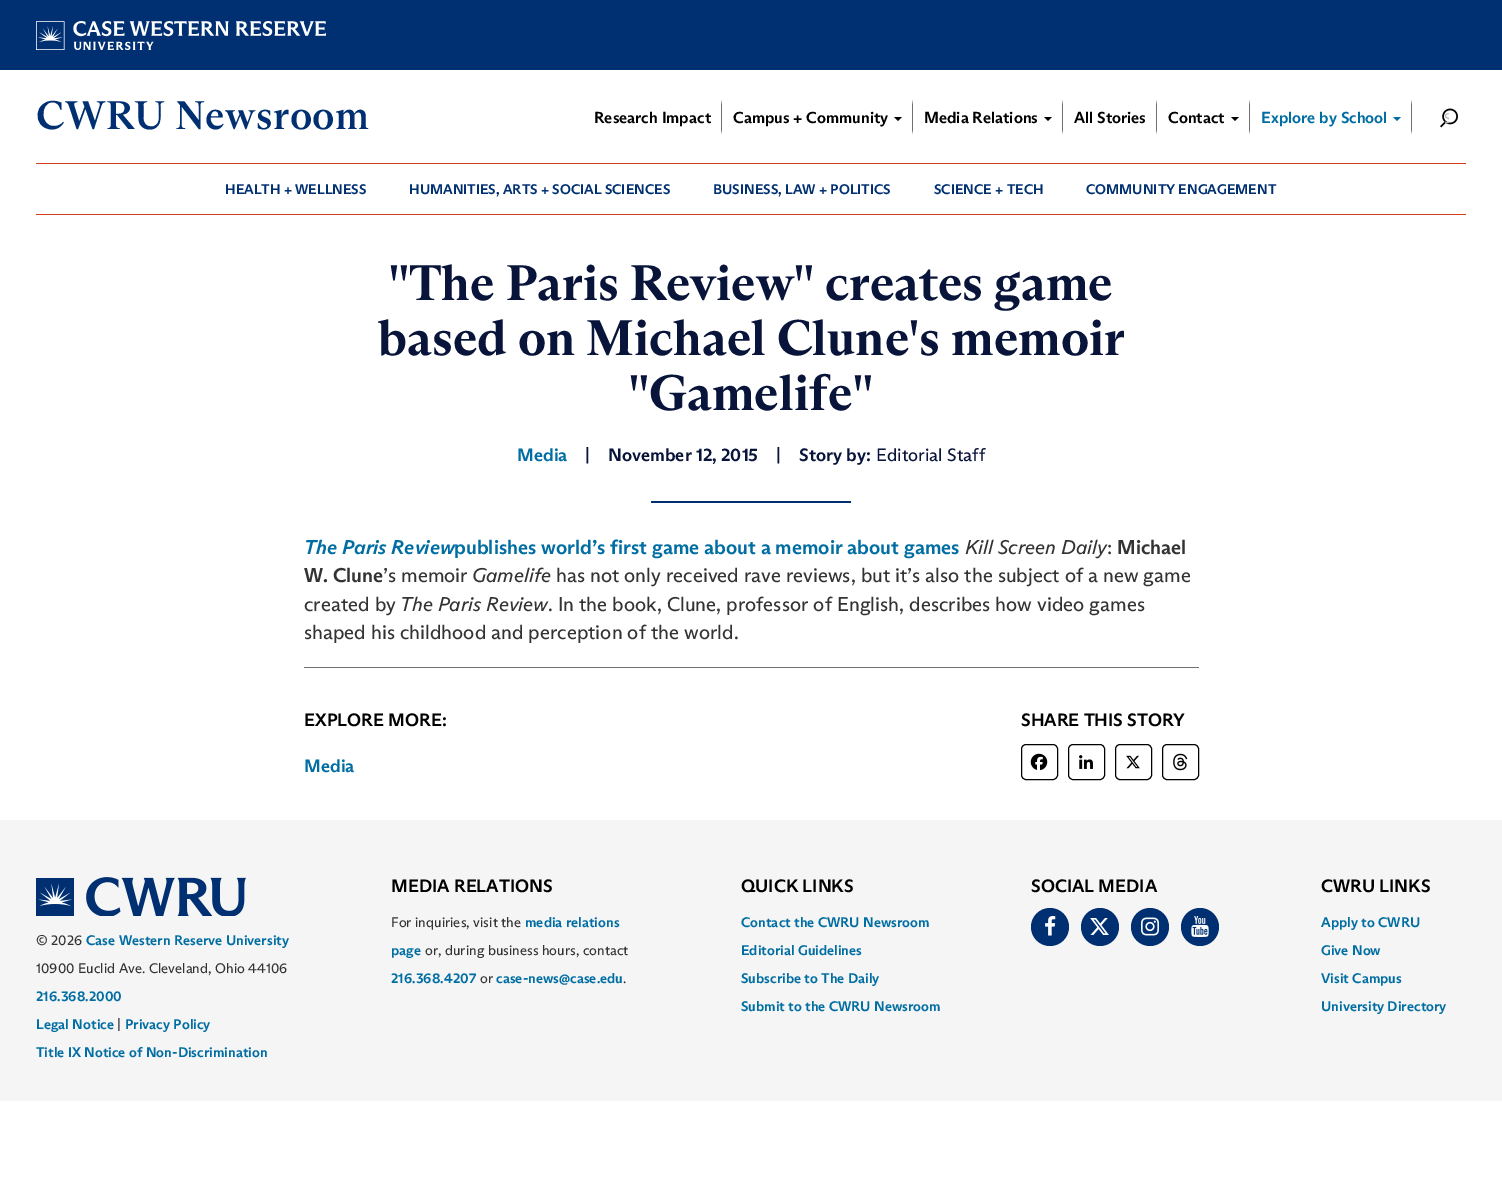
%!PS
<< /PageSize [1502 1197] >> setpagedevice
/rgb { 3 { 255 div 3 1 roll } repeat setrgbcolor } def
/font { [ exch dup neg 0 0 3 -1 roll 0 0 ] selectfont } def
/circle { newpath 0 360 arc closepath } def
/roundrect { 5 dict begin { /r /h /w /y /x } { exch def } forall
  x r add y moveto x w add y 2 copy h add r arct x w add y h add x 1 index r arct
  x y h add x y r arct x y 2 copy exch w add exch r arct closepath end } def
/picture { 5 dict begin { /h /w /y /x /name } { exch def } forall
  gsave x y translate w h scale
  w h 8 [w 0 0 h 0 0] name (r) file false 3 colorimage grestore end } def
0 1197 translate 1 -1 scale
4 setmiterlimit
255 255 255 rgb
0 0 1502 1197 rectfill
0 48 113 rgb
0 0 1502 70 rectfill
(img/1.rgb) 36 21 290 29 picture
112 112 112 rgb
722 100 moveto 722 136 lineto 721 131 lineto 721 105 lineto closepath fill
255 255 255 rgb
722 136 moveto 584 136 lineto 584 131 lineto 721 131 lineto closepath fill
112 112 112 rgb
913 100 moveto 913 136 lineto 912 131 lineto 912 105 lineto closepath fill
255 255 255 rgb
913 136 moveto 723 136 lineto 723 131 lineto 912 131 lineto closepath fill
0 0 0 rgb
894 117 moveto 902 117 lineto 898 121 lineto closepath fill
112 112 112 rgb
1063 100 moveto 1063 136 lineto 1062 131 lineto 1062 105 lineto closepath fill
255 255 255 rgb
1063 136 moveto 914 136 lineto 914 131 lineto 1062 131 lineto closepath fill
0 0 0 rgb
1044 117 moveto 1052 117 lineto 1048 121 lineto closepath fill
112 112 112 rgb
1157 100 moveto 1157 136 lineto 1156 131 lineto 1156 105 lineto closepath fill
255 255 255 rgb
1157 136 moveto 1064 136 lineto 1064 131 lineto 1156 131 lineto closepath fill
112 112 112 rgb
1250 100 moveto 1250 136 lineto 1249 131 lineto 1249 105 lineto closepath fill
255 255 255 rgb
1250 136 moveto 1158 136 lineto 1158 131 lineto 1249 131 lineto closepath fill
0 0 0 rgb
1231 117 moveto 1239 117 lineto 1235 121 lineto closepath fill
112 112 112 rgb
1412 100 moveto 1412 136 lineto 1411 131 lineto 1411 105 lineto closepath fill
255 255 255 rgb
1412 136 moveto 1251 136 lineto 1251 131 lineto 1411 131 lineto closepath fill
0 109 163 rgb
1393 117 moveto 1401 117 lineto 1397 121 lineto closepath fill
(img/2.rgb) 1440 108 18 20 picture
[
  [36 163 1430 1 214 61 31]
  [36 214 1430 1 214 61 31]
  [651 501 200 2 0 48 113]
  [304 667 895 1 112 112 112]
] { aload pop rgb rectfill } forall
0 0 0 rgb
1021.5 744.5 36 35 4.5 roundrect stroke
(img/3.rgb) 1030 753 18 18 picture
1068.5 744.5 36 35 4.5 roundrect stroke
(img/4.rgb) 1079 755 14 14 picture
1115.5 744.5 36 35 4.5 roundrect stroke
(img/5.rgb) 1126 755 14 14 picture
1162.5 744.5 36 35 4.5 roundrect stroke
(img/6.rgb) 1173 753 15 18 picture
245 245 245 rgb
0 820 1502 281 rectfill
(img/7.rgb) 36 877 210 39 picture
0 48 113 rgb
1050 927 19 circle fill
(img/8.rgb) 1045 916 11 20 picture
1100 927 19 circle fill
(img/9.rgb) 1090 918 19 17 picture
1150 927 19 circle fill
(img/10.rgb) 1141 917 18 19 picture
1200 927 19 circle fill
(img/11.rgb) 1191 916 18 21 picture
/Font-Medium 40 font
36 129 moveto 0.4 0 (CWRU Newsroom) ashow
/Font-Bold 16 font
0 0 0 rgb
[
  [(Research Impact) 594 123]
  [(Campus + Community) 733 123]
  [(Media Relations) 924 123]
  [(All Stories) 1074 123]
  [(Contact) 1168 123]
] { aload pop moveto show } forall
0 109 163 rgb
1261 123 moveto (Explore by School) show
gsave
1444 109 5 18 rectclip
/Font-Regular 14 font
182 182 182 rgb
1444 123 moveto (S) show
grestore
/Font-Bold 14 font
0 48 113 rgb
[
  [(HEALTH + WELLNESS) 225 194]
  [(HUMANITIES, ARTS + SOCIAL SCIENCES) 409 194]
  [(BUSINESS, LAW + POLITICS) 713 194]
  [(SCIENCE + TECH) 934 194]
  [(COMMUNITY ENGAGEMENT) 1086 194]
] { aload pop moveto show } forall
/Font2-Bold 50 font
9 20 58 rgb
[
  [("The Paris Review" creates game) 389 300]
  [(based on Michael Clune's memoir) 378 355]
  [("Gamelife") 629 410]
] { aload pop moveto show } forall
/Font-Bold 18 font
0 109 163 rgb
517 461 moveto (Media) show
/Font-Regular 18 font
9 20 58 rgb
585 461 moveto (|) show
/Font-Bold 18 font
608 461 moveto (November 12, 2015) show
/Font-Regular 18 font
776 461 moveto (|) show
/Font-Bold 18 font
799 461 moveto (Story by:) show
/Font-Regular 18 font
876 461 moveto (Editorial Staff) show
/Font-BoldItalic 20 font
0 109 163 rgb
304 554 moveto (The Paris Review) show
/Font-Bold 20 font
454 554 moveto (publishes world’s first game about a memoir about games) show
/Font-Italic 20 font
51 51 51 rgb
965 554 moveto (Kill Screen Daily) show
/Font-Regular 20 font
1107 554 moveto (:) show
/Font-Bold 20 font
1117 554 moveto (Michael) show
304 582 moveto (W. Clune) show
/Font-Regular 20 font
383 582 moveto (’s memoir) show
/Font-Italic 20 font
472 582 moveto (Gamelife) show
/Font-Regular 20 font
556 582 moveto (has not only received rave reviews, but it’s also the subject of a new game) show
304 611 moveto (created by) show
/Font-Italic 20 font
400 611 moveto (The Paris Review) show
/Font-Regular 20 font
548 611 moveto (. In the book, Clune, professor of English, describes how video games) show
304 639 moveto (shaped his childhood and perception of the world.) show
/Font-Bold 18 font
0 0 0 rgb
304 726 moveto (EXPLORE MORE:) show
0 109 163 rgb
304 772 moveto (Media) show
0 0 0 rgb
1021 726 moveto (SHARE THIS STORY) show
/Font-Regular 14 font
51 51 51 rgb
36 945 moveto (© 2026) show
/Font-Bold 14 font
0 109 163 rgb
86 945 moveto (Case Western Reserve University) show
/Font-Regular 14 font
51 51 51 rgb
36 973 moveto (10900 Euclid Ave. Cleveland, Ohio 44106) show
/Font-Bold 14 font
0 109 163 rgb
36 1001 moveto (216.368.2000) show
36 1029 moveto (Legal Notice) show
/Font-Regular 14 font
51 51 51 rgb
117 1029 moveto (|) show
/Font-Bold 14 font
0 109 163 rgb
125 1029 moveto (Privacy Policy) show
36 1057 moveto (Title IX Notice of Non-Discrimination) show
/Font-Bold 18 font
0 0 0 rgb
391 892 moveto (MEDIA RELATIONS) show
/Font-Regular 14 font
51 51 51 rgb
391 927 moveto (For inquiries, visit the) show
/Font-Bold 14 font
0 109 163 rgb
525 927 moveto (media relations) show
391 955 moveto (page) show
/Font-Regular 14 font
51 51 51 rgb
425 955 moveto (or, during business hours, contact) show
/Font-Bold 14 font
0 109 163 rgb
391 983 moveto (216.368.4207) show
/Font-Regular 14 font
51 51 51 rgb
480 983 moveto (or) show
/Font-Bold 14 font
0 109 163 rgb
496 983 moveto (case-news@case.edu) show
/Font-Regular 14 font
51 51 51 rgb
623 983 moveto (.) show
/Font-Bold 18 font
0 0 0 rgb
741 892 moveto (QUICK LINKS) show
/Font-Bold 14 font
0 109 163 rgb
[
  [(Contact the CWRU Newsroom) 741 927]
  [(Editorial Guidelines) 741 955]
  [(Subscribe to The Daily) 741 983]
  [(Submit to the CWRU Newsroom) 741 1011]
] { aload pop moveto show } forall
/Font-Bold 18 font
0 0 0 rgb
1031 892 moveto (SOCIAL MEDIA) show
1321 892 moveto (CWRU LINKS) show
/Font-Bold 14 font
0 109 163 rgb
[
  [(Apply to CWRU) 1321 927]
  [(Give Now) 1321 955]
  [(Visit Campus) 1321 983]
  [(University Directory) 1321 1011]
] { aload pop moveto show } forall
showpage
